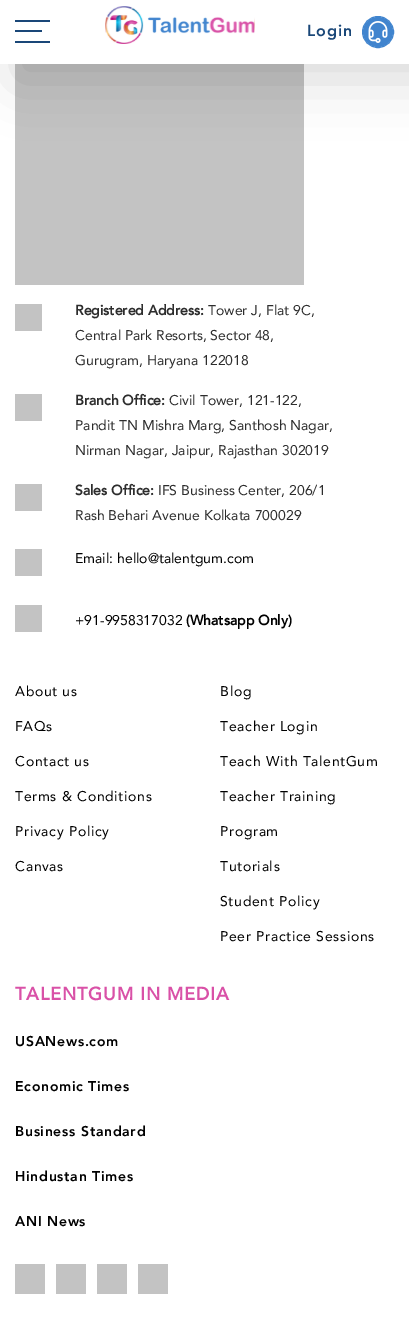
%!PS
<< /PageSize [409 1324] /PageUsesTransparency true >> setpagedevice
/rgb { 3 { 255 div 3 1 roll } repeat setrgbcolor } def
/font { [ exch dup neg 0 0 3 -1 roll 0 0 ] selectfont } def
/alpha { dup .setfillconstantalpha .setstrokeconstantalpha } def
/circle { newpath 0 360 arc closepath } def
/roundrect { 5 dict begin { /r /h /w /y /x } { exch def } forall
  x r add y moveto x w add y 2 copy h add r arct x w add y h add x 1 index r arct
  x y h add x y r arct x y 2 copy exch w add exch r arct closepath end } def
/shadow { 12 dict begin { /a /b /q /h /w /y /x } { exch def } forall gsave /was 0 def
  9 -2 -9 { dup b mul 4 div /e exch def 1 sub .425 mul 2.718 exch exp 1 add a .99 .min exch div /now exch def
    1 1 now sub 1 was sub div sub alpha /was now def
    w h .min e 2 mul add 0 gt { x e sub y e sub w e 2 mul add h e 2 mul add
      q e add b .6 mul add w h .min 2 div e add .min 0 .max roundrect fill } if } for grestore end } def
/picture { 5 dict begin { /h /w /y /x /name } { exch def } forall
  gsave x y translate w h scale
  w h 8 [w 0 0 h 0 0] name (r) file false 3 colorimage grestore end } def
0 .pushpdf14devicefilter
0 1324 translate 1 -1 scale
4 setmiterlimit
255 255 255 rgb
0 0 409 1324 rectfill
195 195 195 rgb
15 64 289 221 rectfill
0 0 0 rgb
15 15 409 64 0 27.5 0.15 shadow
[
  [0 0 409 64 255 255 255]
  [15 20 35 2 26 71 120]
  [15 30 27 2 26 71 120]
  [15 41 35 2 26 71 120]
] { aload pop rgb rectfill } forall
(img/1.rgb) 105 6 150 38 picture
64 132 206 rgb
378 32 15.5 circle stroke
378 32 15 circle fill
(img/2.rgb) 368 21 20 22 picture
[
  [15 304 27 27 195 195 195]
  [15 394 27 27 195 195 195]
  [15 484 27 27 195 195 195]
  [15 549 27 27 195 195 195]
  [15 605 27 27 195 195 195]
  [15 1264 30 30 195 195 195]
  [56 1264 30 30 195 195 195]
  [97 1264 30 30 195 195 195]
  [138 1264 30 30 195 195 195]
] { aload pop rgb rectfill } forall
/Avenir-Black 16 font
26 71 120 rgb
307 36 moveto 1 0 (Login) ashow
/Avenir-Bold 14 font
45 45 45 rgb
75 315 moveto (Registered Address:) show
/Avenir-Regular 14 font
[
  [(Tower J, Flat 9C,) 208 315]
  [(Central Park Resorts, Sector 48,) 75 340]
  [(Gurugram, Haryana 122018) 75 365]
] { aload pop moveto show } forall
/Avenir-Bold 14 font
75 405 moveto (Branch Office:) show
/Avenir-Regular 14 font
[
  [(Civil Tower, 121-122,) 169 405]
  [(Pandit TN Mishra Marg, Santhosh Nagar,) 75 430]
  [(Nirman Nagar, Jaipur, Rajasthan 302019) 75 455]
] { aload pop moveto show } forall
/Avenir-Bold 14 font
75 495 moveto (Sales Office:) show
/Avenir-Regular 14 font
158 495 moveto (IFS Business Center, 206/1) show
75 520 moveto (Rash Behari Avenue Kolkata 700029) show
0 0 0 rgb
75 563 moveto (Email: hello@talentgum.com) show
75 625 moveto (+91-9958317032) show
/Avenir-Bold 14 font
186 625 moveto (\(Whatsapp Only\)) show
/Avenir-Regular 14 font
15 696 moveto 0.7 0 (About us) ashow
15 731 moveto 0.7 0 (FAQs) ashow
15 766 moveto 0.7 0 (Contact us) ashow
15 801 moveto 0.7 0 (Terms & Conditions) ashow
15 836 moveto 0.7 0 (Privacy Policy) ashow
15 871 moveto 0.7 0 (Canvas) ashow
220 696 moveto 0.7 0 (Blog) ashow
220 731 moveto 0.7 0 (Teacher Login) ashow
220 766 moveto 0.7 0 (Teach With TalentGum) ashow
220 801 moveto 0.7 0 (Teacher Training) ashow
220 836 moveto 0.7 0 (Program) ashow
220 871 moveto 0.7 0 (Tutorials) ashow
220 906 moveto 0.7 0 (Student Policy) ashow
220 941 moveto 0.7 0 (Peer Practice Sessions) ashow
/Avenir-Bold 18 font
217 81 167 rgb
15 1000 moveto 0.9 0 (TALENTGUM IN MEDIA) ashow
/Avenir-Black 14 font
0 0 0 rgb
15 1046 moveto 0.7 0 (USANews.com) ashow
15 1091 moveto 0.7 0 (Economic Times) ashow
15 1136 moveto 0.7 0 (Business Standard) ashow
15 1181 moveto 0.7 0 (Hindustan Times) ashow
15 1226 moveto 0.7 0 (ANI News) ashow
.poppdf14devicefilter showpage
